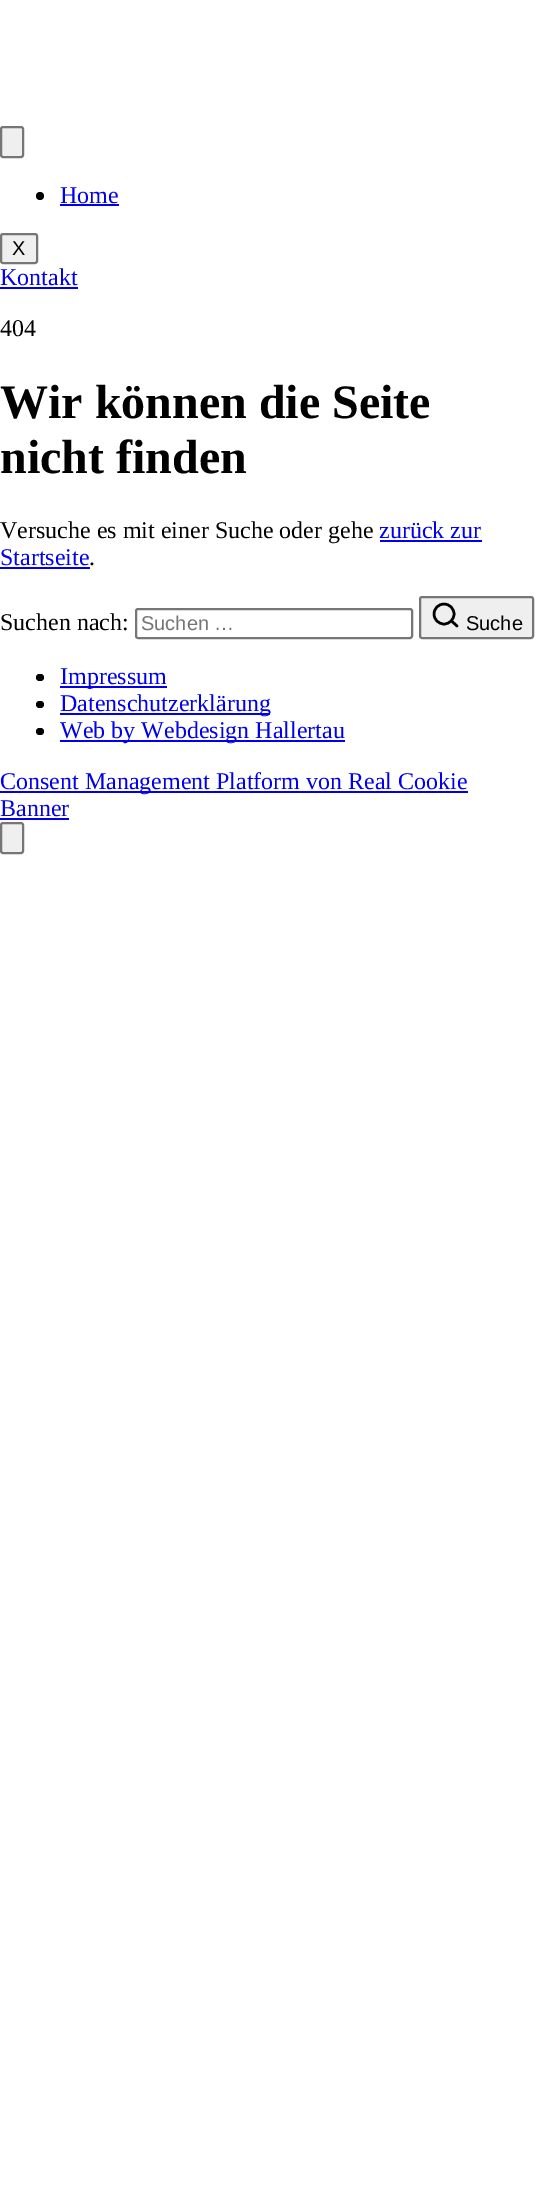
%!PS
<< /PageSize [541 2203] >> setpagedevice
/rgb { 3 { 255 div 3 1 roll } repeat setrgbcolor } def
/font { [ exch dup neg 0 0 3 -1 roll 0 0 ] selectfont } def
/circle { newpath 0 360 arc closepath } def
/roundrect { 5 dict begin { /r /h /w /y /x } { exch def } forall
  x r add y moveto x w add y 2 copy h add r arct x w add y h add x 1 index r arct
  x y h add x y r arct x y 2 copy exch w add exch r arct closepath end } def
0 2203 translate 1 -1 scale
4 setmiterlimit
255 255 255 rgb
0 0 541 2203 rectfill
239 239 239 rgb
1 127 22 30 2 roundrect gsave fill grestore
118 118 118 rgb
2 setlinewidth
stroke
0 0 0 rgb
40 196 4 circle fill
0 0 238 rgb
60 204 59 2 rectfill
239 239 239 rgb
1 234 36 29 2 roundrect gsave fill grestore
118 118 118 rgb
stroke
[
  [0 287 78 2 0 0 238]
  [380 540 102 2 0 0 238]
  [0 567 90 2 0 0 238]
] { aload pop rgb rectfill } forall
118 118 118 rgb
136 609 276 29 2 roundrect stroke
239 239 239 rgb
420 597 113 41 2 roundrect gsave fill grestore
118 118 118 rgb
stroke
0 0 0 rgb
2.5 setlinewidth
444 614 10 circle stroke
1 setlinecap
1 setlinejoin
457 626 moveto 451.5 621 lineto stroke
36 674 8 7 3.5 roundrect fill
0 0 238 rgb
60 686 107 2 rectfill
0 0 0 rgb
36 701 8 7 3.5 roundrect fill
0 0 238 rgb
60 713 210 2 rectfill
0 0 0 rgb
36 728 8 7 3.5 roundrect fill
[
  [60 740 285 2 0 0 238]
  [0 791 468 2 0 0 238]
  [0 818 69 2 0 0 238]
] { aload pop rgb rectfill } forall
239 239 239 rgb
1 823 22 30 2 roundrect gsave fill grestore
118 118 118 rgb
2 setlinewidth
0 setlinecap
0 setlinejoin
stroke
/LiberationSerif-Regular 24 font
0 0 238 rgb
60 203 moveto (Home) show
/LiberationSans-Regular 20 font
0 0 0 rgb
12 255 moveto (X) show
/LiberationSerif-Regular 24 font
0 0 238 rgb
0 285 moveto (Kontakt) show
0 0 0 rgb
0 336 moveto (404) show
/LiberationSerif-Bold 48 font
0 418 moveto (Wir können die Seite) show
0 473 moveto (nicht finden) show
/LiberationSerif-Regular 24 font
0 538 moveto (Versuche es mit einer Suche oder gehe) show
0 0 238 rgb
379 538 moveto (zurück zur) show
0 565 moveto (Startseite) show
0 0 0 rgb
89 565 moveto (.) show
0 630 moveto (Suchen nach:) show
/LiberationSans-Regular 20 font
117 117 117 rgb
141 630 moveto (Suchen …) show
0 0 0 rgb
466 630 moveto (Suche) show
/LiberationSerif-Regular 24 font
0 0 238 rgb
[
  [(Impressum) 60 684]
  [(Datenschutzerklärung) 60 711]
  [(Web by Webdesign Hallertau) 60 738]
  [(Consent Management Platform von Real Cookie) 0 789]
  [(Banner) 0 816]
] { aload pop moveto show } forall
showpage
